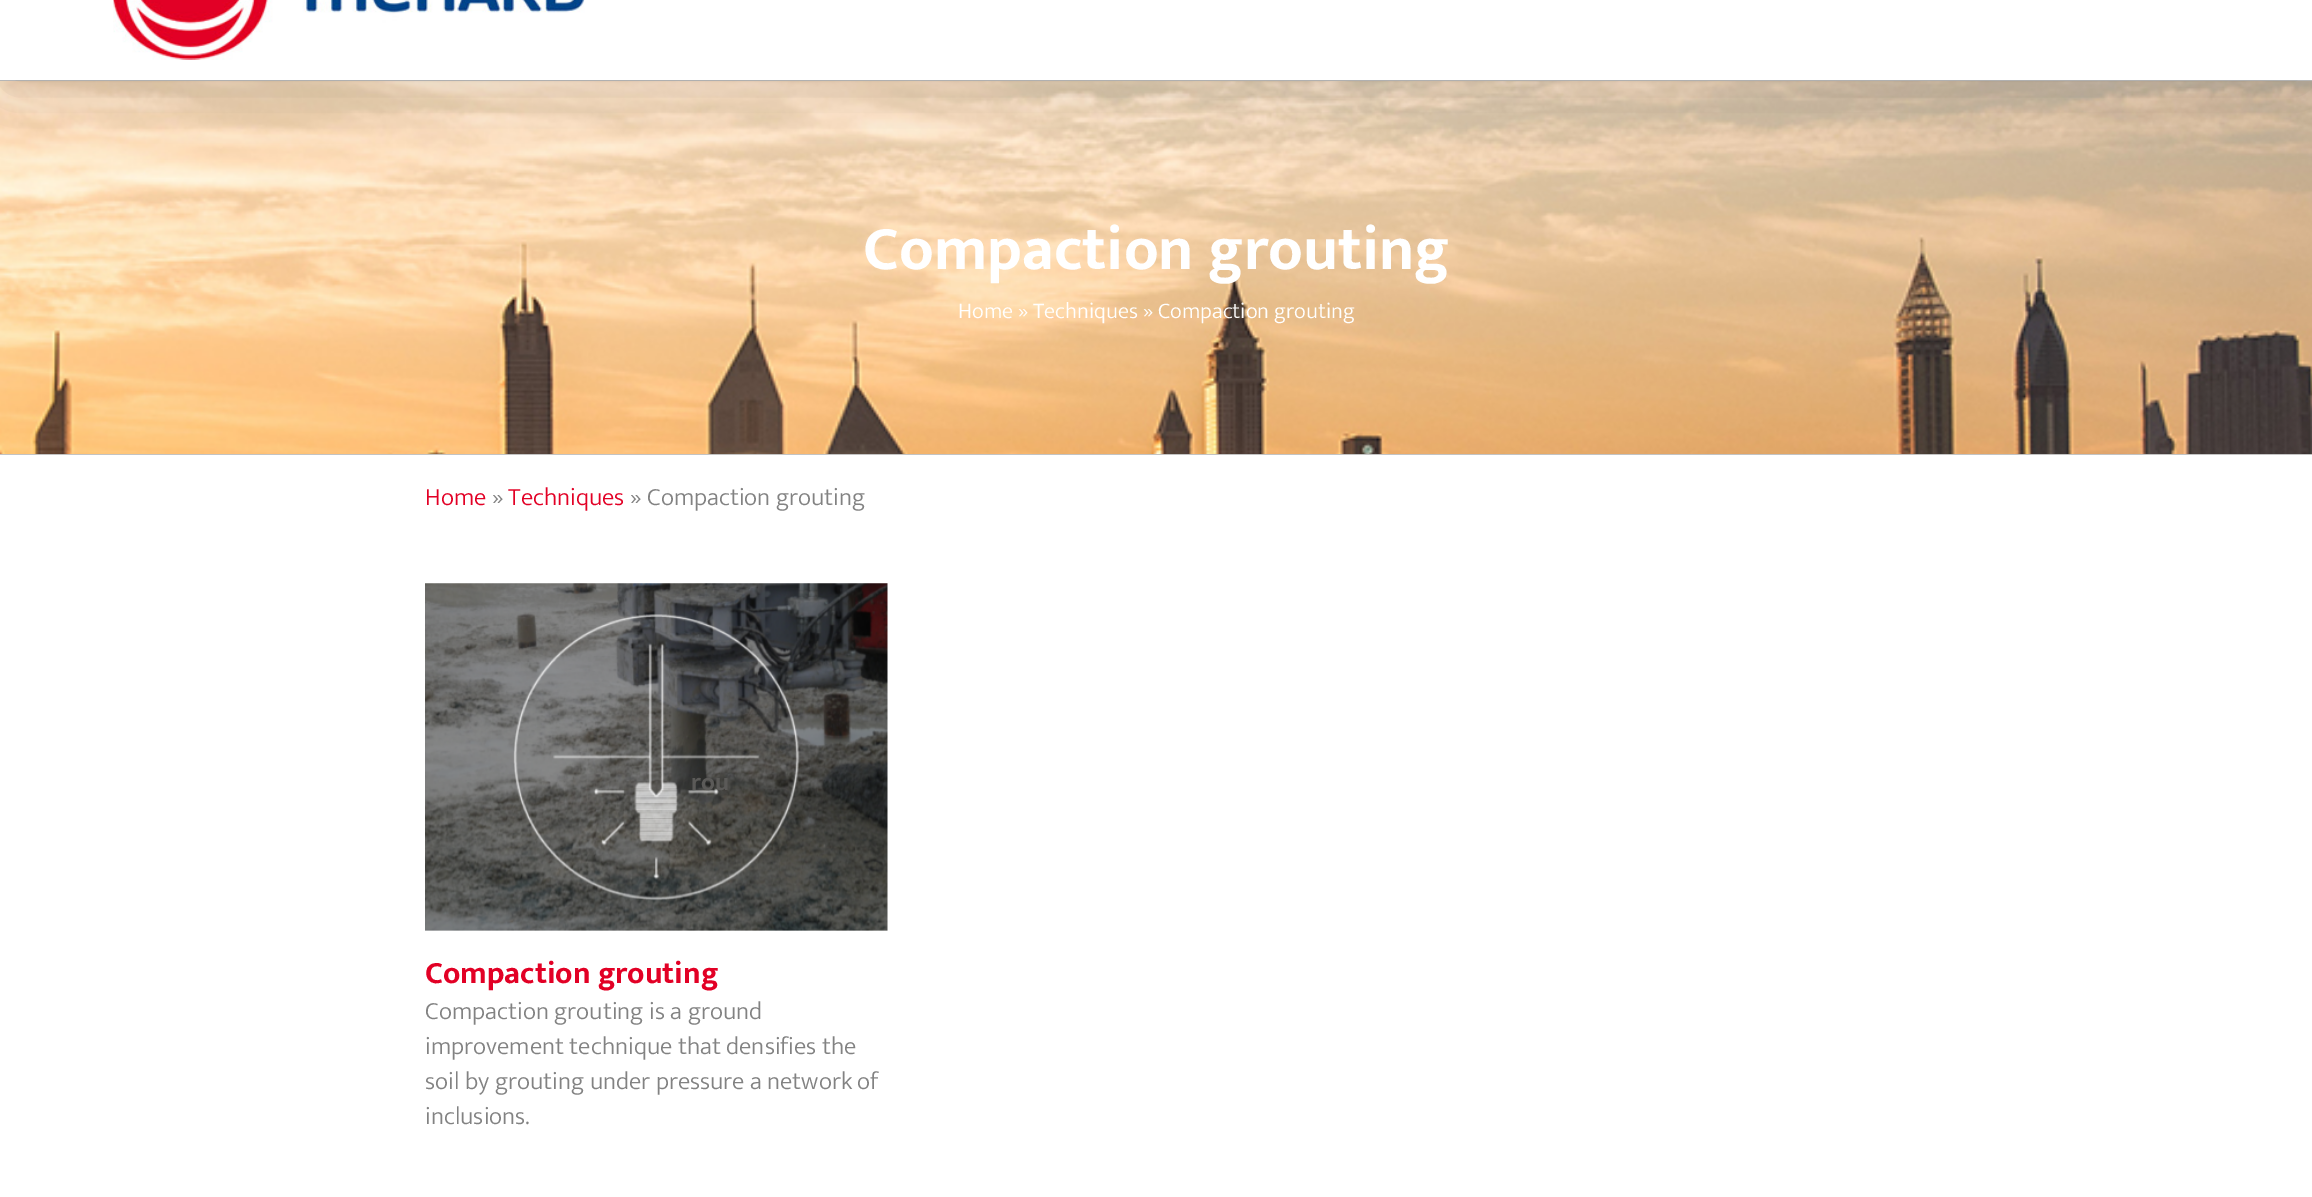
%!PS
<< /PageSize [2312 1197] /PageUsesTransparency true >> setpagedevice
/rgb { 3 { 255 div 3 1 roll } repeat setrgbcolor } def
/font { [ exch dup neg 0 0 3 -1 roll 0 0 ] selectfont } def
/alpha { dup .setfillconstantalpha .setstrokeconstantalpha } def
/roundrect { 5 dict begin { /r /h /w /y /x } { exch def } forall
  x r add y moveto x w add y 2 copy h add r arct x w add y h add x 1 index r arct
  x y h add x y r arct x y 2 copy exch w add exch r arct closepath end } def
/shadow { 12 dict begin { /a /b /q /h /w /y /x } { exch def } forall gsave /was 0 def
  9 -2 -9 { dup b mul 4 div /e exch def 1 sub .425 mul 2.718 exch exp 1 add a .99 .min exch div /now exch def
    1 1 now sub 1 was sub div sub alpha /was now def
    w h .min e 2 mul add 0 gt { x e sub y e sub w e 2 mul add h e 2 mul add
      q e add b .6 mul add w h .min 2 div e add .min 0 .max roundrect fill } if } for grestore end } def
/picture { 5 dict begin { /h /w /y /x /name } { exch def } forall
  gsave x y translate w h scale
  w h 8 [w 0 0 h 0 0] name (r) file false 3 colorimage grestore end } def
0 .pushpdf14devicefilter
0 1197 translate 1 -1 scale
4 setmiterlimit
255 255 255 rgb
0 0 2312 1197 rectfill
(img/2.rgb) 0 81 2312 373 picture
195 195 195 rgb
0 80 2312 1 rectfill
0 0 0 rgb
3 -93 2307 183 0 31 0.14 shadow
255 255 255 rgb
0 0 2312 80 rectfill
(img/1.rgb) 113 0 472 60 picture
195 195 195 rgb
0 454 2312 1 rectfill
(img/3.rgb) 425 583 463 348 picture
/Mukta-Bold 62.5 font
255 255 255 rgb
863 269 moveto (Compaction grouting) show
/Mukta-Light 22.5 font
958 318 moveto (Home » Techniques » Compaction grouting) show
/Mukta-Light 25 font
226 0 37 rgb
425 505 moveto (Home) show
130 130 130 rgb
492 505 moveto (») show
226 0 37 rgb
508 505 moveto (Techniques) show
130 130 130 rgb
630 505 moveto (» Compaction grouting) show
/Mukta-Bold 25 font
91 90 88 rgb
691 790 moveto (rou) show
/Mukta-Bold 31.25 font
226 0 37 rgb
425 983 moveto (Compaction grouting) show
/Mukta-Light 25 font
130 130 130 rgb
[
  [(Compaction grouting is a ground) 425 1019]
  [(improvement technique that densifies the) 425 1054]
  [(soil by grouting under pressure a network of) 425 1089]
  [(inclusions.) 425 1124]
] { aload pop moveto show } forall
.poppdf14devicefilter showpage
